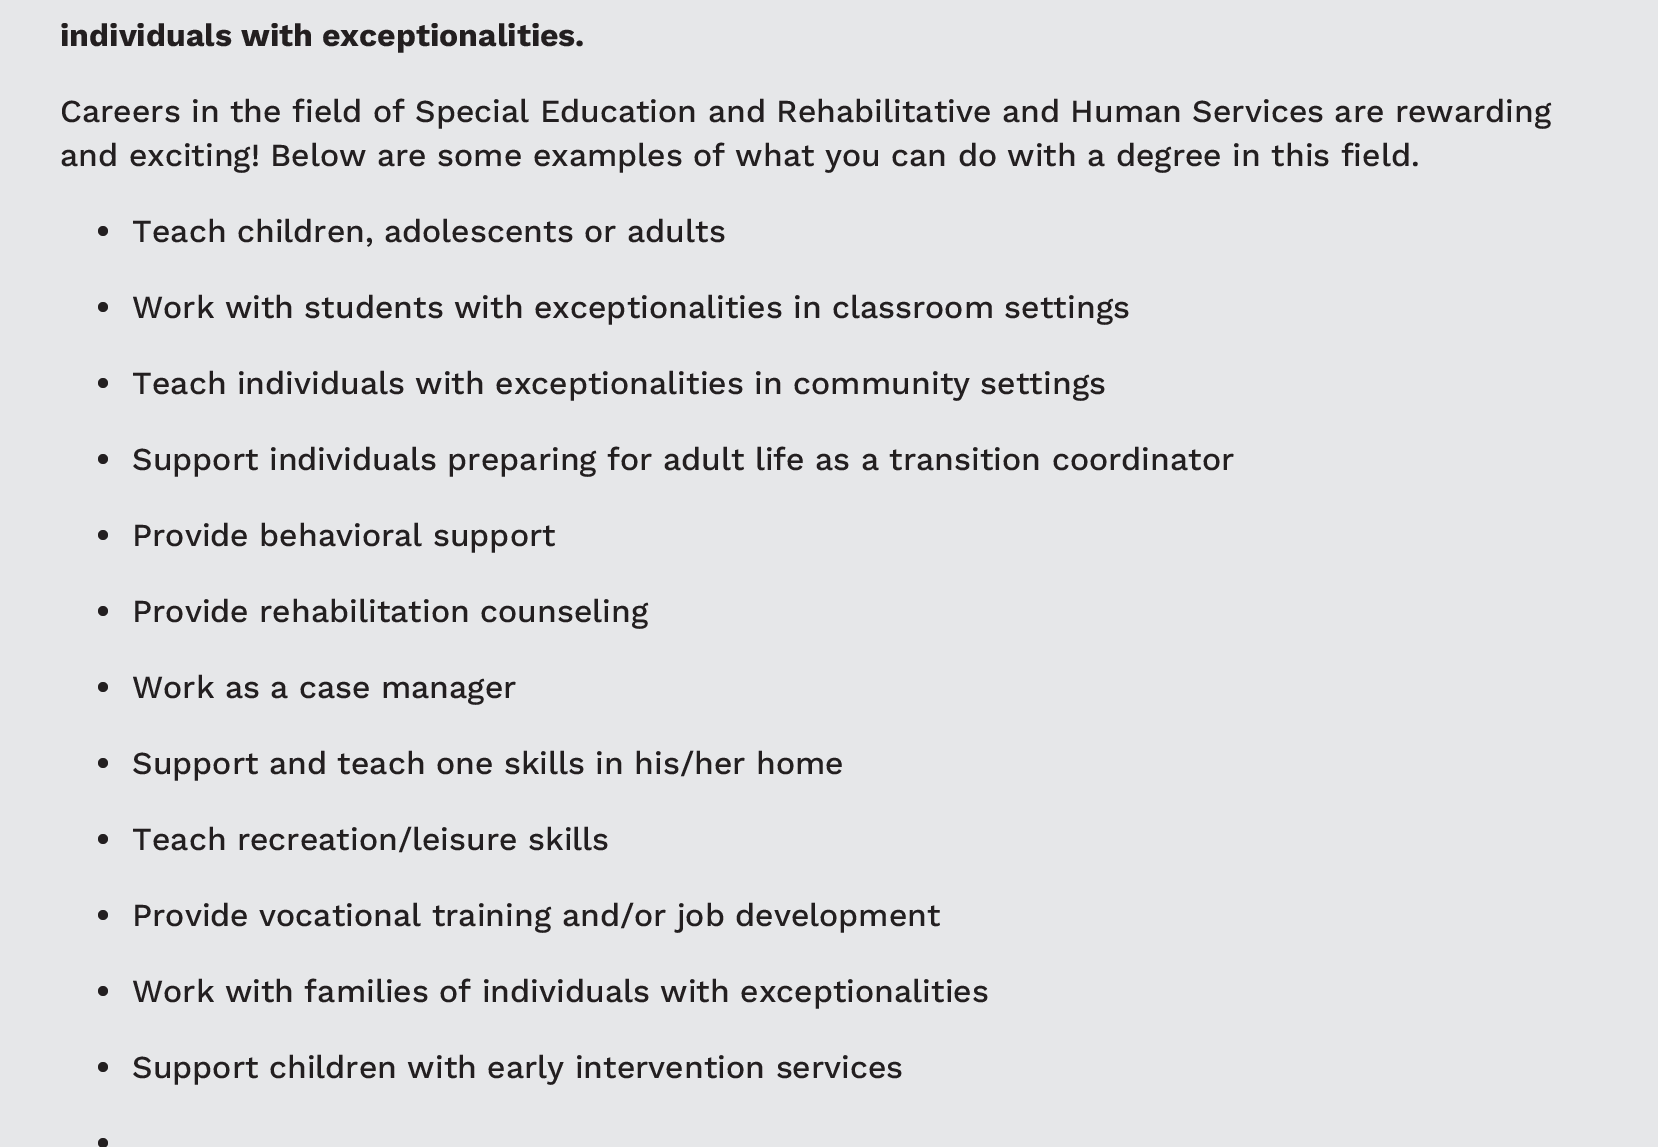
%!PS
<< /PageSize [1658 1147] >> setpagedevice
/rgb { 3 { 255 div 3 1 roll } repeat setrgbcolor } def
/font { [ exch dup neg 0 0 3 -1 roll 0 0 ] selectfont } def
/circle { newpath 0 360 arc closepath } def
0 1147 translate 1 -1 scale
4 setmiterlimit
230 231 233 rgb
0 0 1658 1147 rectfill
35 31 32 rgb
103 231 5 circle fill
103 307 5 circle fill
103 383 5 circle fill
103 459 5 circle fill
103 535 5 circle fill
103 611 5 circle fill
103 687 5 circle fill
103 763 5 circle fill
103 839 5 circle fill
103 915 5 circle fill
103 991 5 circle fill
103 1067 5 circle fill
103 1143 5 circle fill
/WorkSans-Bold 32 font
60 46 moveto (individuals with exceptionalities.) show
/WorkSans-Medium 32 font
[
  [(Careers in the field of Special Education and Rehabilitative and Human Services are rewarding) 60 122]
  [(and exciting! Below are some examples of what you can do with a degree in this field.) 60 166]
  [(Teach children, adolescents or adults) 132 242]
  [(Work with students with exceptionalities in classroom settings) 132 318]
  [(Teach individuals with exceptionalities in community settings) 132 394]
  [(Support individuals preparing for adult life as a transition coordinator) 132 470]
  [(Provide behavioral support) 132 546]
  [(Provide rehabilitation counseling) 132 622]
  [(Work as a case manager) 132 698]
  [(Support and teach one skills in his/her home) 132 774]
  [(Teach recreation/leisure skills) 132 850]
  [(Provide vocational training and/or job development) 132 926]
  [(Work with families of individuals with exceptionalities) 132 1002]
  [(Support children with early intervention services) 132 1078]
] { aload pop moveto show } forall
showpage
